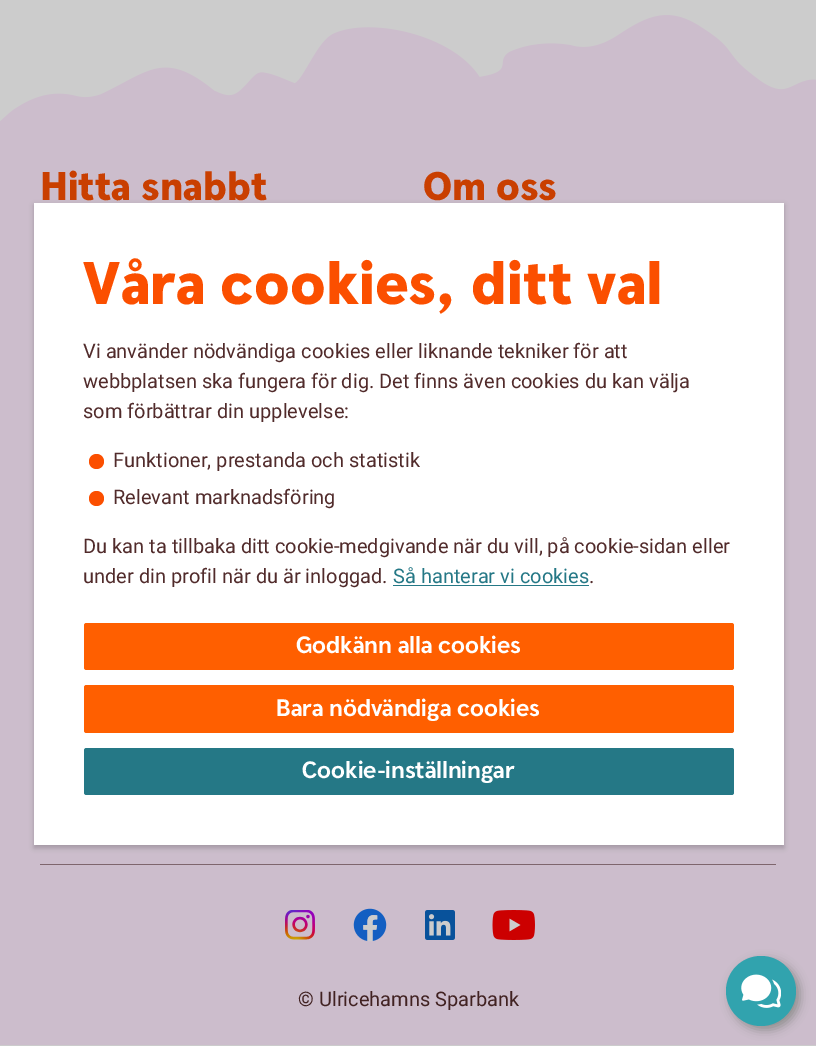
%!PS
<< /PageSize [816 1046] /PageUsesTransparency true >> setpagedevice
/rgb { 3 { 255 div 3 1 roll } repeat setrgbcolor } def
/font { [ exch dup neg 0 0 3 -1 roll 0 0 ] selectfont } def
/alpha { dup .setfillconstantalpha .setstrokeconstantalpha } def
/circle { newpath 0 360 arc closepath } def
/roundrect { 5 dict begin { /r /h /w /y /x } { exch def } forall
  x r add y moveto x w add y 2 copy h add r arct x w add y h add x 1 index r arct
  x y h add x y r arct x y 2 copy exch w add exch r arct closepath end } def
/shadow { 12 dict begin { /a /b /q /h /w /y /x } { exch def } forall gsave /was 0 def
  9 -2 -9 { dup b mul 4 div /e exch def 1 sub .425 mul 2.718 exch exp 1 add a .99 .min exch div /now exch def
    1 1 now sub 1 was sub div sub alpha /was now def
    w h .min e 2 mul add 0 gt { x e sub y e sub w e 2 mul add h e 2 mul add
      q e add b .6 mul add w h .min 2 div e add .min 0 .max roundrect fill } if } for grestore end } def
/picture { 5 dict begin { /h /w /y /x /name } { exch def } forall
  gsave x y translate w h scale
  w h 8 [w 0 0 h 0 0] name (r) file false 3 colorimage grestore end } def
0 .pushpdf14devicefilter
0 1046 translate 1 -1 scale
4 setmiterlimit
204 204 204 rgb
0 0 816 1046 rectfill
(img/1.rgb) 0 15 816 109 picture
204 189 204 rgb
0 124 816 921 rectfill
126 102 109 rgb
40 864 736 1 rectfill
(img/2.rgb) 285 910 30 30 picture
(img/3.rgb) 353 908 34 34 picture
(img/4.rgb) 425 910 30 30 picture
(img/5.rgb) 492 910 43 30 picture
0 0 0 rgb
34 205 750 643 0 2.5 0.2 shadow
255 255 255 rgb
34 203 750 642 rectfill
251 79 0 rgb
96.5 461.5 7.5 circle fill
96.5 498.5 7.5 circle fill
37 120 134 rgb
393 585 196 1 rectfill
255 95 0 rgb
84 623 650 47 2.5 roundrect fill
84 685 650 48 2.5 roundrect fill
37 120 134 rgb
84 748 650 47 2.5 roundrect fill
144 142 142 rgb
730 960 70 70 35 5 1 shadow
49 163 174 rgb
761 991 35 circle fill
(img/6.rgb) 741 974 40 34 picture
/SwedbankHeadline-Black 40 font
201 63 0 rgb
40 200 moveto (Hitta snabbt) show
423 200 moveto (Om oss) show
/Roboto-Regular 20 font
65 34 34 rgb
298 1006 moveto (© Ulricehamns Sparbank) show
/SwedbankHeadline-Black 60 font
251 79 0 rgb
83 304 moveto (Våra cookies, ditt val) show
/Roboto-Regular 20 font
81 43 43 rgb
[
  [(Vi använder nödvändiga cookies eller liknande tekniker för att) 83 358]
  [(webbplatsen ska fungera för dig. Det finns även cookies du kan välja) 83 388]
  [(som förbättrar din upplevelse:) 83 418]
  [(Funktioner, prestanda och statistik) 113 467]
  [(Relevant marknadsföring) 113 504]
  [(Du kan ta tillbaka ditt cookie-medgivande när du vill, på cookie-sidan eller) 83 553]
  [(under din profil när du är inloggad.) 83 583]
] { aload pop moveto show } forall
37 120 134 rgb
393 583 moveto (Så hanterar vi cookies) show
81 43 43 rgb
589 583 moveto (.) show
/SwedbankHeadline-Bold 23.75 font
255 255 255 rgb
[
  [(Godkänn alla cookies) 296 653]
  [(Bara nödvändiga cookies) 276 716]
  [(Cookie-inställningar) 302 778]
] { aload pop moveto show } forall
.poppdf14devicefilter showpage
